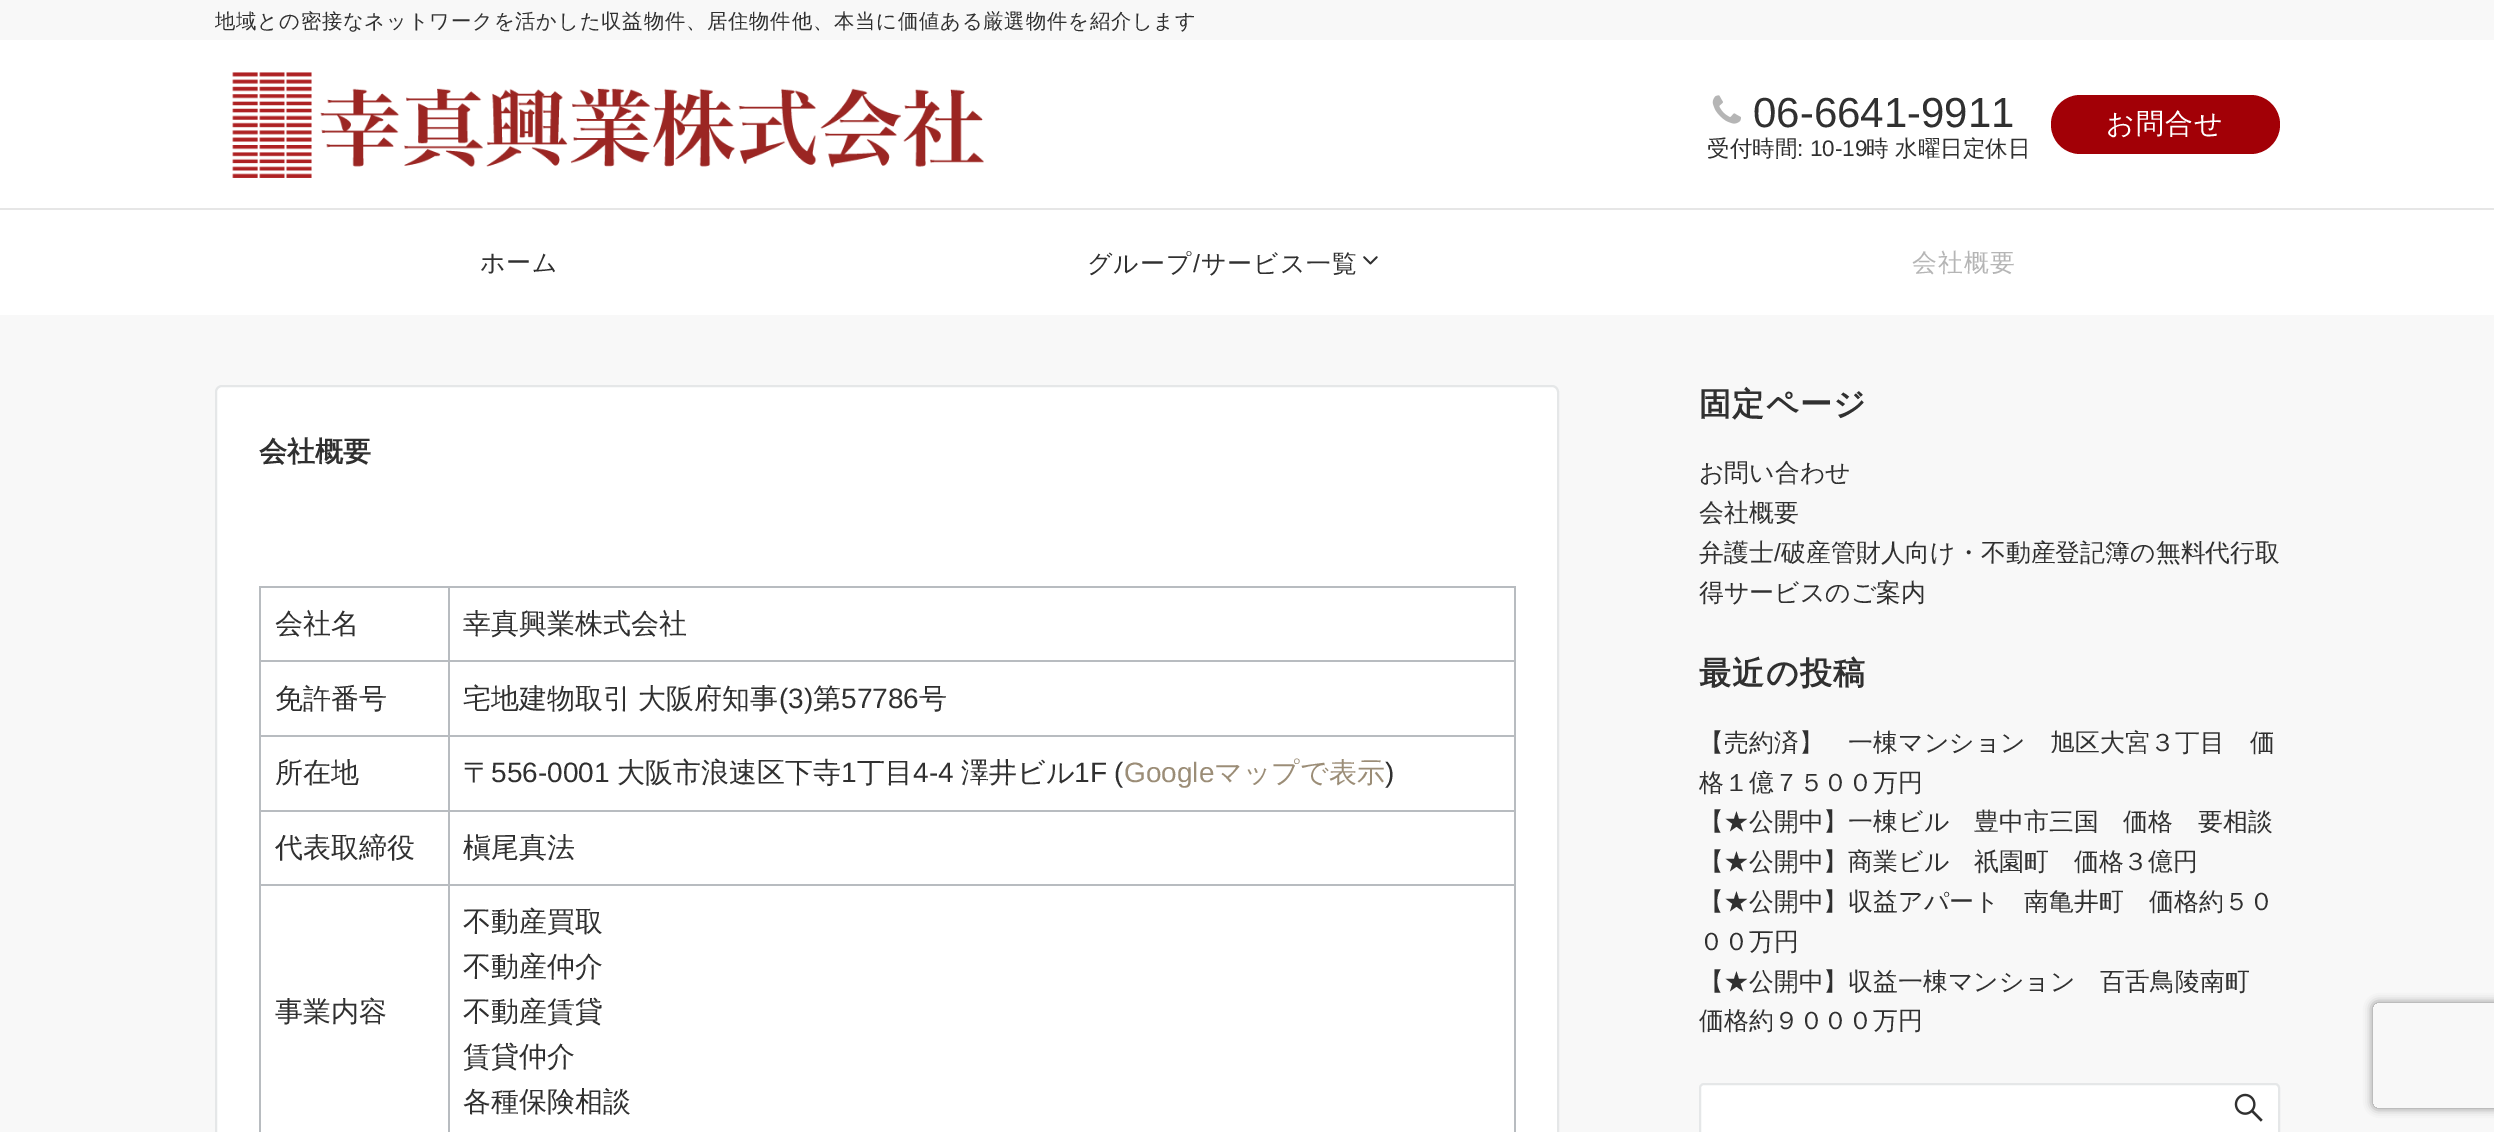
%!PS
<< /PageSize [2494 1132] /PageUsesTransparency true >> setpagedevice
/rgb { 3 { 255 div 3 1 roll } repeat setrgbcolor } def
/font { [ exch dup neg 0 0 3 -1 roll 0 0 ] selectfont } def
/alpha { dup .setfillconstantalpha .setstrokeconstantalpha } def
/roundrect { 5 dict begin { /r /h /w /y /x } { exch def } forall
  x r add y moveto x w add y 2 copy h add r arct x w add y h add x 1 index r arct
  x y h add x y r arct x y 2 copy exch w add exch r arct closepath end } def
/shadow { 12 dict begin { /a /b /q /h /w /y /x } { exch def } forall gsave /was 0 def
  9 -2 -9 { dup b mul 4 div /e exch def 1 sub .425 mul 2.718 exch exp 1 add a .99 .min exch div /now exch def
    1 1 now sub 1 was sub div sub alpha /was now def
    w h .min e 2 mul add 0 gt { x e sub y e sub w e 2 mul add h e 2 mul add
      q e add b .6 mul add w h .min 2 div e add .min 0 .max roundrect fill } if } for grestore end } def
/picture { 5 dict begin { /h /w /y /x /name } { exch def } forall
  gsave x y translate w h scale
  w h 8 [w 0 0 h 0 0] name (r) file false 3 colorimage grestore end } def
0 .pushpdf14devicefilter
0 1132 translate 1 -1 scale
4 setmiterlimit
248 248 248 rgb
0 0 2494 1132 rectfill
255 255 255 rgb
0 40 2494 168 rectfill
230 230 230 rgb
0 208 2494 2 rectfill
(img/1.rgb) 232 72 752 106 picture
(img/2.rgb) 1712 95 29 29 picture
162 0 6 rgb
2051 95 229 59 29.5 roundrect fill
255 255 255 rgb
0 210 2494 105 rectfill
(img/3.rgb) 1363 256 15 9 picture
216 386 1342 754 6 roundrect gsave fill grestore
229 231 232 rgb
2 setlinewidth
stroke
[
  [448 586 1068 2 184 188 192]
  [448 660 1068 2 184 188 192]
  [448 735 1068 2 184 188 192]
  [448 810 1068 2 184 188 192]
  [448 884 1068 2 184 188 192]
  [448 884 2 248 184 188 192]
  [259 884 191 2 184 188 192]
  [448 810 2 76 184 188 192]
  [259 810 191 2 184 188 192]
  [448 735 2 77 184 188 192]
  [259 735 191 2 184 188 192]
  [448 660 2 77 184 188 192]
  [259 660 191 2 184 188 192]
  [448 586 2 76 184 188 192]
  [259 586 191 2 184 188 192]
  [259 884 2 248 184 188 192]
  [259 810 2 76 184 188 192]
  [259 735 2 77 184 188 192]
  [259 660 2 77 184 188 192]
  [259 586 2 76 184 188 192]
  [1514 884 2 248 184 188 192]
  [1514 810 2 76 184 188 192]
  [1514 735 2 77 184 188 192]
  [1514 660 2 77 184 188 192]
  [1514 586 2 76 184 188 192]
] { aload pop rgb rectfill } forall
255 255 255 rgb
1700 1084 579 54 4 roundrect gsave fill grestore
229 231 232 rgb
stroke
(img/4.rgb) 2234 1093 29 29 picture
gsave
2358 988 moveto 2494 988 lineto 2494 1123 lineto 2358 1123 lineto closepath 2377 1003 moveto 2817 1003 lineto 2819 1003 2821 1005 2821 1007 curveto 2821 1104 lineto 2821 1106 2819 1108 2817 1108 curveto 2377 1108 lineto 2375 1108 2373 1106 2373 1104 curveto 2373 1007 lineto 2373 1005 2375 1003 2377 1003 curveto closepath eoclip newpath
128 128 128 rgb
2373 1003 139 105 4 4.5 1 shadow
grestore
/WenQuanYiZenHei-Medium 20.35 font
48 48 48 rgb
215 28 moveto 0.8 0 (地域との密接なネットワークを活かした収益物件、居住物件他、本当に価値ある厳選物件を紹介します) ashow
/LiberationSans-Regular 42 font
1753 127 moveto (06-6641-9911) show
/WenQuanYiZenHei-Medium 22.5 font
1707 156 moveto (受付時間) show
/LiberationSans-Regular 22.5 font
1797 156 moveto (: 10-19) show
/WenQuanYiZenHei-Medium 22.5 font
1866 156 moveto (時) show
1895 156 moveto (水曜日定休日) show
/WenQuanYiZenHei-Medium 28 font
255 255 255 rgb
2106 133 moveto 1 0 (お問合せ) ashow
/WenQuanYiZenHei-Medium 24.9 font
48 48 48 rgb
480 271 moveto 1 0 (ホーム) ashow
1087 272 moveto 1 0 (グループ) ashow
/LiberationSans-Regular 24.9 font
1193 272 moveto 1 0 (/) ashow
/WenQuanYiZenHei-Medium 24.9 font
1201 272 moveto 1 0 (サービス一覧) ashow
181 181 181 rgb
1912 271 moveto 1 0 (会社概要) ashow
/WenQuanYiZenHei-Bold 28 font
48 48 48 rgb
259 461 moveto (会社概要) show
/WenQuanYiZenHei-Medium 28 font
[
  [(会社名) 275 633]
  [(幸真興業株式会社) 463 633]
  [(免許番号) 275 708]
] { aload pop moveto show } forall
463 708 moveto -1 0 32 (宅地建物取引 大阪府知事) widthshow
/LiberationSans-Regular 28 font
779 708 moveto (\(3\)) show
/WenQuanYiZenHei-Medium 28 font
813 708 moveto (第) show
/LiberationSans-Regular 28 font
841 708 moveto (57786) show
/WenQuanYiZenHei-Medium 28 font
[
  [(号) 919 708]
  [(所在地) 275 782]
  [(〒) 463 782]
] { aload pop moveto show } forall
/LiberationSans-Regular 28 font
491 782 moveto (556-0001) show
/WenQuanYiZenHei-Medium 28 font
617 782 moveto (大阪市浪速区下寺) show
/LiberationSans-Regular 28 font
841 782 moveto (1) show
/WenQuanYiZenHei-Medium 28 font
857 782 moveto (丁目) show
/LiberationSans-Regular 28 font
913 782 moveto (4-4) show
/WenQuanYiZenHei-Medium 28 font
961 782 moveto (澤井ビル) show
/LiberationSans-Regular 28 font
1074 782 moveto (1F \() show
155 141 119 rgb
1124 782 moveto (Google) show
/WenQuanYiZenHei-Medium 28 font
1214 782 moveto (マップで表示) show
/LiberationSans-Regular 28 font
48 48 48 rgb
1385 782 moveto (\)) show
/WenQuanYiZenHei-Medium 28 font
[
  [(代表取締役) 275 857]
  [(槇尾真法) 463 857]
  [(事業内容) 275 1021]
  [(不動産買取) 463 931]
  [(不動産仲介) 463 976]
  [(不動産賃貸) 463 1021]
  [(賃貸仲介) 463 1066]
  [(各種保険相談) 463 1111]
] { aload pop moveto show } forall
/WenQuanYiZenHei-Bold 32 font
1699 415 moveto 1.25 0 (固定ページ) ashow
/WenQuanYiZenHei-Medium 24.9 font
[
  [(お問い合わせ) 1699 481]
  [(会社概要) 1699 521]
  [(弁護士) 1699 561]
] { aload pop moveto show } forall
/LiberationSans-Regular 24.9 font
1774 561 moveto (/) show
/WenQuanYiZenHei-Medium 24.9 font
1781 561 moveto (破産管財人向け・不動産登記簿の無料代行取) show
1699 601 moveto (得サービスのご案内) show
/WenQuanYiZenHei-Bold 32 font
1699 684 moveto 1.25 0 (最近の投稿) ashow
/WenQuanYiZenHei-Medium 24.9 font
[
  [(【売約済】　一棟マンション　旭区大宮３丁目　価) 1699 751]
  [(格１億７５００万円) 1699 791]
  [(【★公開中】一棟ビル　豊中市三国　価格　要相談) 1699 830]
  [(【★公開中】商業ビル　祇園町　価格３億円) 1699 870]
  [(【★公開中】収益アパート　南亀井町　価格約５０) 1699 910]
  [(００万円) 1699 950]
  [(【★公開中】収益一棟マンション　百舌鳥陵南町) 1699 990]
  [(価格約９０００万円) 1699 1029]
] { aload pop moveto show } forall
.poppdf14devicefilter showpage
